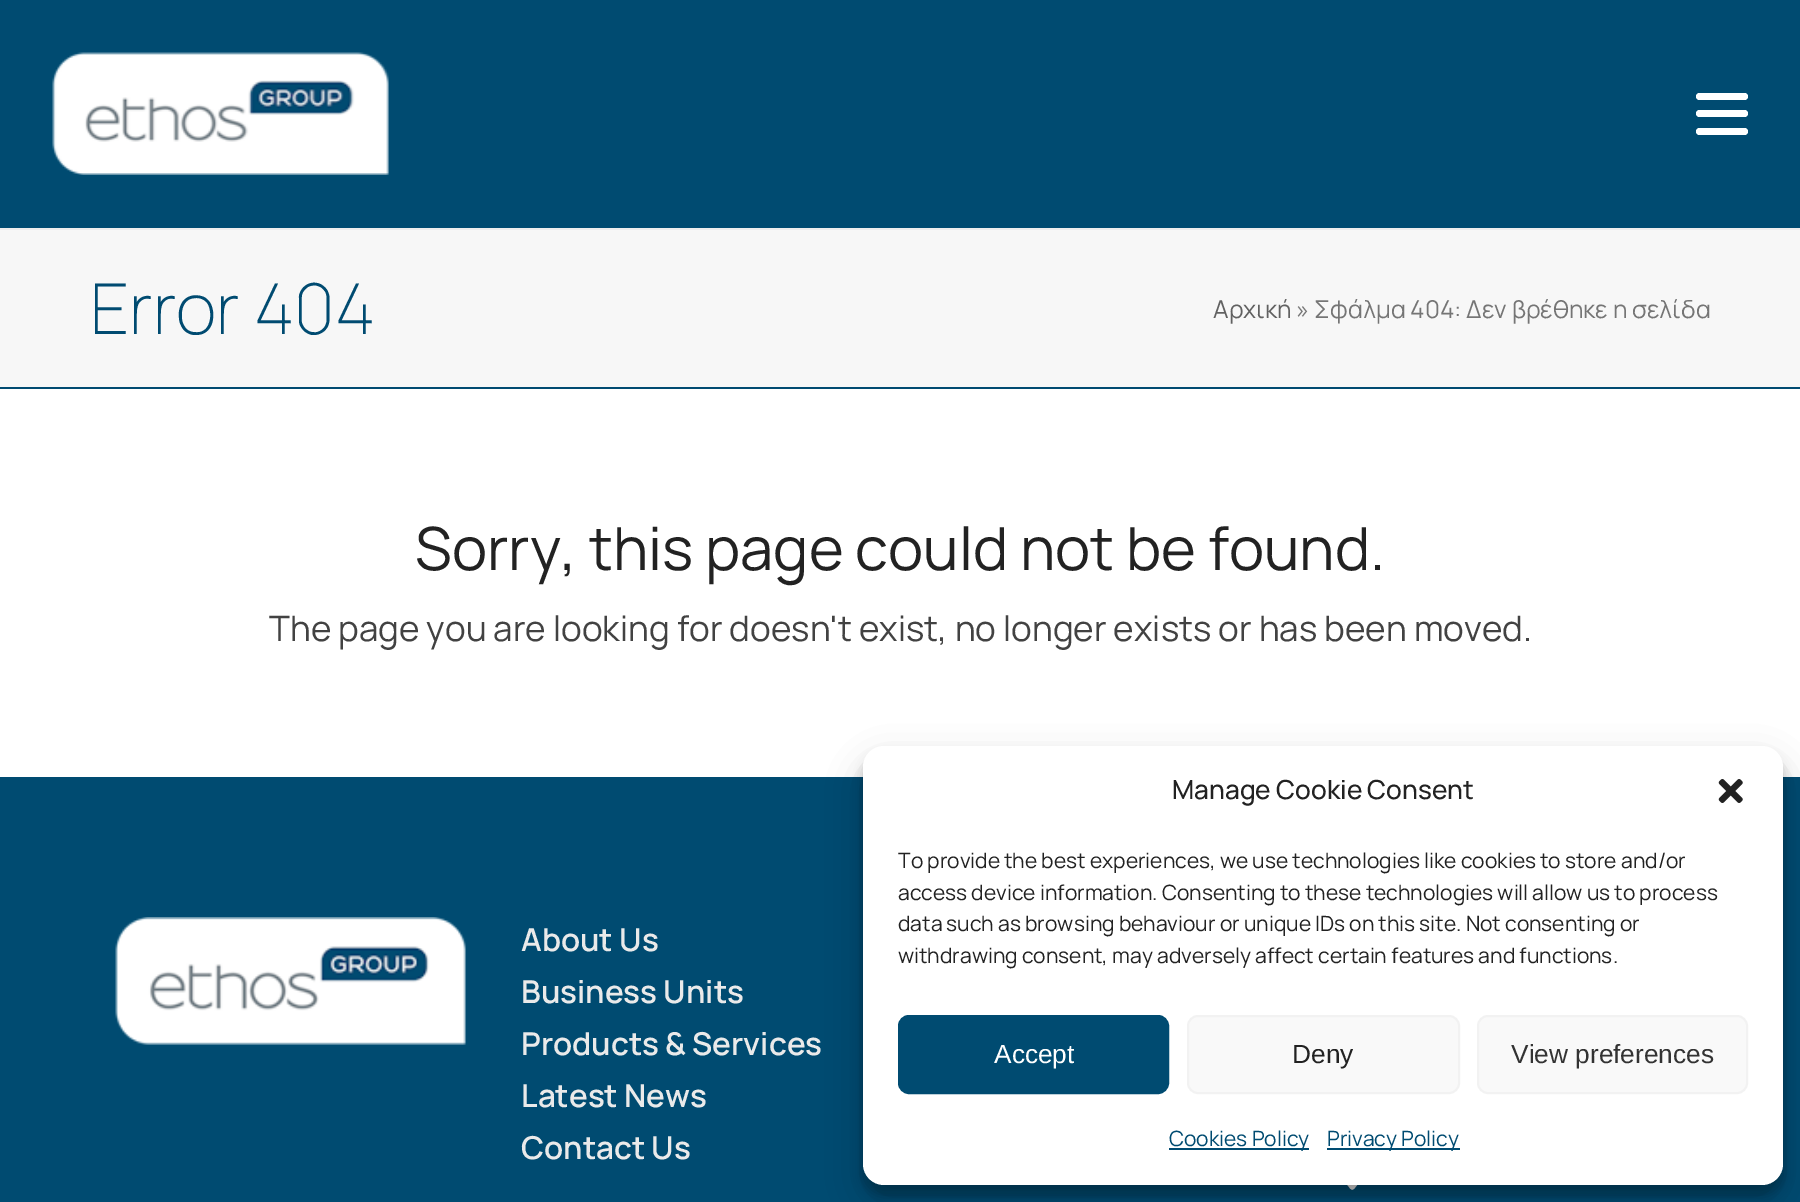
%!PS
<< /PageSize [1800 1202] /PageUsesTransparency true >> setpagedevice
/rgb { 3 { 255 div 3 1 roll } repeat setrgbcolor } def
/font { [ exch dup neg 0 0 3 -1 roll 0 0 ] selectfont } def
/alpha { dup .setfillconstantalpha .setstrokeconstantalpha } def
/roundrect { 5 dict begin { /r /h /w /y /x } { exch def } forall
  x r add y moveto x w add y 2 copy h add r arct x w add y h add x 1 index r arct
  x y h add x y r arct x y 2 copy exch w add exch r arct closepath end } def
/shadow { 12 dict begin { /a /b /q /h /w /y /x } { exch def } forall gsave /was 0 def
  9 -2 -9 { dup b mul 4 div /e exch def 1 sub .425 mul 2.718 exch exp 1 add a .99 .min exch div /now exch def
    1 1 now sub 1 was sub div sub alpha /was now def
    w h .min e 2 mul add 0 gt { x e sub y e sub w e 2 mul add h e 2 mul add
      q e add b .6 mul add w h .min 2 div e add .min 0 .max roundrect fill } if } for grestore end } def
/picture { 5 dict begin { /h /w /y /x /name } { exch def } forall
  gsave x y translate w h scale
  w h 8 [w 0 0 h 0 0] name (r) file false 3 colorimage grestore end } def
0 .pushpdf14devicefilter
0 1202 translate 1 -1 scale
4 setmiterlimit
255 255 255 rgb
0 0 1800 1202 rectfill
0 75 113 rgb
0 0 1800 228 rectfill
(img/1.rgb) 52 52 337 123 picture
255 255 255 rgb
1696 110 52 7 3.5 roundrect fill
1696 93 52 7 3.5 roundrect fill
1696 128 52 7 3.5 roundrect fill
[
  [0 230 1800 157 247 247 247]
  [0 228 1800 2 238 238 238]
  [0 387 1800 2 0 75 113]
  [0 777 1800 425 0 75 113]
] { aload pop rgb rectfill } forall
(img/2.rgb) 115 917 351 128 picture
234 234 234 rgb
1364 1170.5 moveto 1364 1175 1361 1179.5 1358.5 1183 curveto 1352 1192 1352.5 1192 1346 1183 curveto 1344 1179.5 1340.5 1175 1340.5 1170.5 curveto 1340 1155 1364 1154.5 1364 1170.5 curveto closepath fill
0 0 0 rgb
863 756 920 439 21 5 0.23 shadow
863 763 920 439 21 17.5 0.19 shadow
255 255 255 rgb
863 746 920 439 21 roundrect fill
(img/3.rgb) 1718 779 25 24 picture
0 75 113 rgb
899 1016 269 77 10 roundrect gsave fill grestore
2 setlinewidth
stroke
249 249 249 rgb
1188 1016 271 77 10 roundrect gsave fill grestore
242 242 242 rgb
stroke
249 249 249 rgb
1478 1016 269 77 10 roundrect gsave fill grestore
242 242 242 rgb
stroke
0 75 113 rgb
1169 1148 140 2 rectfill
1327 1148 133 2 rectfill
/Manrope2-ExtraLight 70 font
90 334 moveto (Error 404) show
/Manrope-ExtraLight 24.5 font
97 97 97 rgb
1213 318 moveto (Αρχική) show
117 117 117 rgb
1296 318 moveto (» Σφάλμα 404: Δεν βρέθηκε η σελίδα) show
/Manrope-ExtraLight 59.5 font
34 34 34 rgb
415 570 moveto (Sorry, this page could not be found.) show
/Manrope-ExtraLight 35 font
66 66 66 rgb
269 641 moveto (The page you are looking for doesn't exist, no longer exists or has been moved.) show
/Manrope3-ExtraLight 31.5 font
234 234 234 rgb
[
  [(About Us) 521 951]
  [(Business Units) 521 1003]
  [(Products & Services) 521 1055]
  [(Latest News) 521 1107]
  [(Contact Us) 521 1159]
] { aload pop moveto show } forall
/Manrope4-ExtraLight 26.25 font
34 34 34 rgb
1172 799 moveto (Manage Cookie Consent) show
/Manrope-ExtraLight 21 font
[
  [(To provide the best experiences, we use technologies like cookies to store and/or) 898 868]
  [(access device information. Consenting to these technologies will allow us to process) 898 900]
  [(data such as browsing behaviour or unique IDs on this site. Not consenting or) 898 931]
  [(withdrawing consent, may adversely affect certain features and functions.) 898 963]
] { aload pop moveto show } forall
/LiberationSans-Regular 26.25 font
255 255 255 rgb
994 1063 moveto (Accept) show
34 34 34 rgb
1292 1063 moveto (Deny) show
51 51 51 rgb
1511 1063 moveto (View preferences) show
/Manrope-ExtraLight 21 font
0 75 113 rgb
1169 1146 moveto (Cookies Policy) show
1327 1146 moveto (Privacy Policy) show
.poppdf14devicefilter showpage
